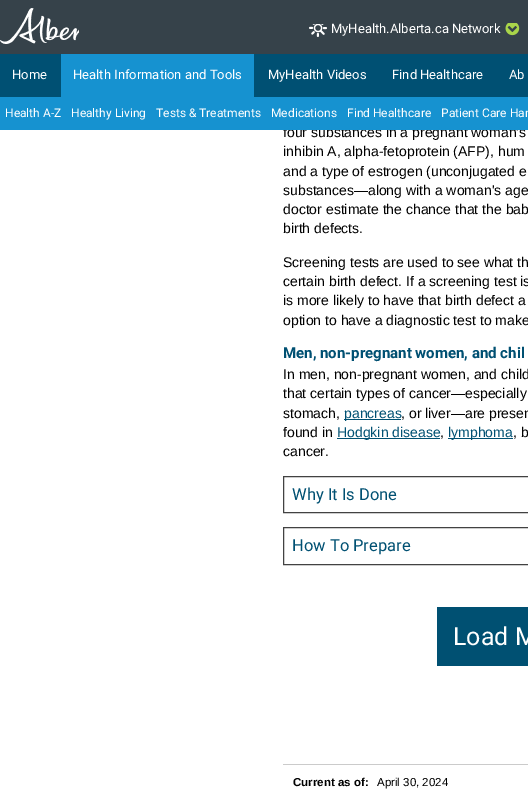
%!PS
<< /PageSize [528 796] >> setpagedevice
/rgb { 3 { 255 div 3 1 roll } repeat setrgbcolor } def
/font { [ exch dup neg 0 0 3 -1 roll 0 0 ] selectfont } def
/picture { 5 dict begin { /h /w /y /x /name } { exch def } forall
  gsave x y translate w h scale
  w h 8 [w 0 0 h 0 0] name (r) file false 3 colorimage grestore end } def
0 796 translate 1 -1 scale
4 setmiterlimit
255 255 255 rgb
0 0 528 796 rectfill
0 80 115 rgb
0 54 528 43 rectfill
54 66 74 rgb
0 0 528 54 rectfill
(img/1.rgb) 0 8 79 36 picture
(img/2.rgb) 309 24 18 13 picture
(img/3.rgb) 505 23 15 13 picture
[
  [61 54 193 43 22 146 208]
  [344 419 57 1 0 80 114]
  [337 438 103 1 0 80 114]
  [448 438 65 1 0 80 114]
] { aload pop rgb rectfill } forall
66 66 66 rgb
283.5 476.5 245 36 rectstroke
283.5 527.5 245 37 rectstroke
0 80 114 rgb
437 607 91 59 rectfill
203 203 203 rgb
283 764 245 1 rectfill
/Roboto-Regular 13 font
255 255 255 rgb
[
  [(MyHealth.Alberta.ca Network) 331 33]
  [(Home) 12 79]
  [(Health Information and Tools) 73 79]
  [(MyHealth Videos) 268 79]
  [(Find Healthcare) 392 79]
  [(Ab) 509 79]
] { aload pop moveto show } forall
/LiberationSans-Regular 14 font
0 0 0 rgb
283 137 moveto (four substances in a pregnant woman's) show
22 146 208 rgb
0 97 528 33 rectfill
/Roboto-Regular 12 font
255 255 255 rgb
[
  [(Patient Care Han) 441 117]
  [(Find Healthcare) 347 117]
  [(Medications) 271 117]
  [(Tests & Treatments) 156 117]
  [(Healthy Living) 71 117]
  [(Health A-Z) 5 117]
] { aload pop moveto show } forall
/LiberationSans-Regular 14 font
0 0 0 rgb
[
  [(inhibin A, alpha-fetoprotein \(AFP\), hum) 283 156]
  [(and a type of estrogen \(unconjugated e) 283 176]
  [(substances—along with a woman's age) 283 195]
  [(doctor estimate the chance that the bab) 283 214]
  [(birth defects.) 283 233]
  [(Screening tests are used to see what th) 283 267]
  [(certain birth defect. If a screening test is) 283 286]
  [(is more likely to have that birth defect a) 283 305]
  [(option to have a diagnostic test to make) 283 325]
] { aload pop moveto show } forall
/Roboto-Bold 15 font
0 80 114 rgb
283 358 moveto (Men, non-pregnant women, and chil) show
/LiberationSans-Regular 14 font
0 0 0 rgb
[
  [(In men, non-pregnant women, and child) 283 379]
  [(that certain types of cancer—especially) 283 398]
  [(stomach,) 283 418]
] { aload pop moveto show } forall
0 80 114 rgb
344 418 moveto (pancreas) show
0 0 0 rgb
401 418 moveto (, or liver—are presen) show
283 437 moveto (found in) show
0 80 114 rgb
337 437 moveto (Hodgkin disease) show
0 0 0 rgb
440 437 moveto (,) show
0 80 114 rgb
448 437 moveto (lymphoma) show
0 0 0 rgb
513 437 moveto (, b) show
283 456 moveto (cancer.) show
/Roboto-Regular 16.5 font
0 80 114 rgb
292 500 moveto (Why It Is Done) show
292 551 moveto (How To Prepare) show
/Roboto-Regular 25 font
255 255 255 rgb
453 645 moveto (Load M) show
/LiberationSans-Bold 11.5 font
0 0 0 rgb
293 786 moveto (Current as of:) show
/LiberationSans-Regular 11.5 font
377 786 moveto (April 30, 2024) show
showpage
